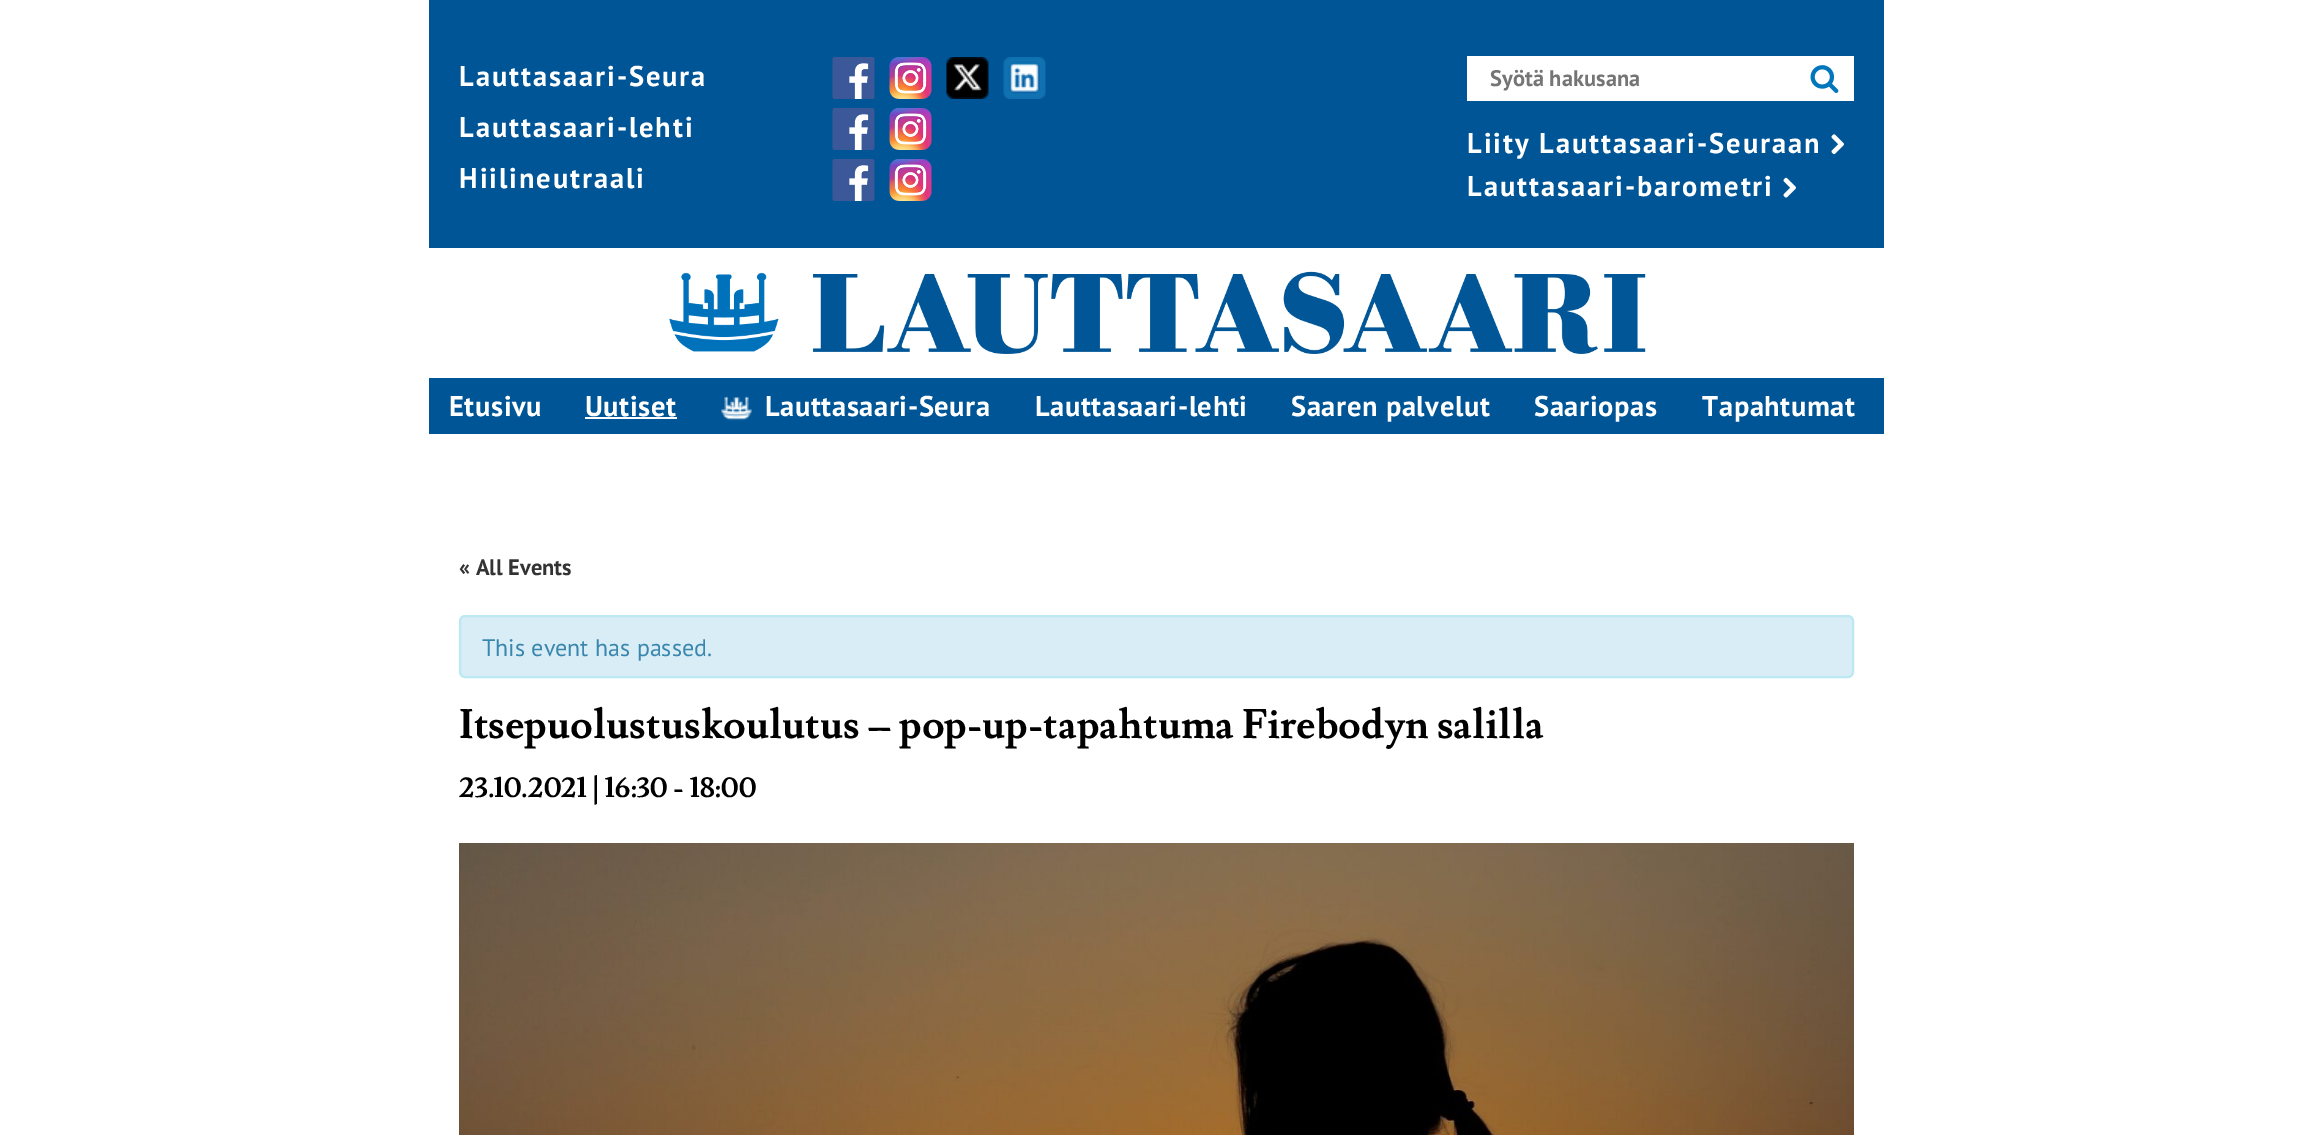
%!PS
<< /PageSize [2312 1135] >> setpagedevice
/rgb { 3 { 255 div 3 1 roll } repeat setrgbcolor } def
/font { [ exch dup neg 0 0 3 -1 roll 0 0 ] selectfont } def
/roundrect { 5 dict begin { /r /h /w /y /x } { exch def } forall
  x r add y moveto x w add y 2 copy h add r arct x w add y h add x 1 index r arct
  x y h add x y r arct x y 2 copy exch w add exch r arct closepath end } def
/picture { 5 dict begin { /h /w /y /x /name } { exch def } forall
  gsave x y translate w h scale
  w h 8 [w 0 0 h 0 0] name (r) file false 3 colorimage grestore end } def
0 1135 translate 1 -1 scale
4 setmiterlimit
255 255 255 rgb
0 0 2312 1135 rectfill
0 85 150 rgb
429 0 1455 248 rectfill
(img/1.rgb) 832 57 43 42 picture
(img/2.rgb) 889 57 43 42 picture
(img/3.rgb) 946 57 43 42 picture
(img/4.rgb) 1003 57 43 42 picture
(img/1.rgb) 832 108 43 42 picture
(img/2.rgb) 889 108 43 42 picture
(img/1.rgb) 832 159 43 42 picture
(img/2.rgb) 889 159 43 42 picture
255 255 255 rgb
1467 56 387 45 rectfill
(img/5.rgb) 1810 65 29 28 picture
(img/6.rgb) 1831 134 13 21 picture
(img/7.rgb) 1783 177 13 21 picture
(img/8.rgb) 669 271 977 83 picture
0 85 150 rgb
429 378 1455 56 rectfill
255 255 255 rgb
585 417 92 2 rectfill
(img/9.rgb) 721 396 31 25 picture
217 237 247 rgb
460 616 1393 61 5 roundrect gsave fill grestore
188 232 241 rgb
2 setlinewidth
stroke
(img/10.rgb) 459 843 1395 292 picture
/PTSans-Bold 28.5 font
255 255 255 rgb
459 86 moveto 1.95 0 (Lauttasaari-Seura) ashow
459 137 moveto 1.95 0 (Lauttasaari-lehti) ashow
459 188 moveto 1.95 0 (Hiilineutraali) ashow
/PTSans-Bold 22.5 font
117 117 117 rgb
1490 86 moveto (Syötä hakusana) show
/PTSans-Bold 28.5 font
255 255 255 rgb
1467 153 moveto 1.95 0 (Liity Lauttasaari-Seuraan) ashow
1467 196 moveto 1.95 0 (Lauttasaari-barometri) ashow
449 416 moveto 0.6 0 (Etusivu) ashow
585 416 moveto 0.6 0 (Uutiset) ashow
765 416 moveto 0.6 0 (Lauttasaari-Seura) ashow
1035 416 moveto 0.6 0 (Lauttasaari-lehti) ashow
1291 416 moveto 0.6 0 (Saaren palvelut) ashow
1534 416 moveto 0.6 0 (Saariopas) ashow
1702 416 moveto 0.6 0 (Tapahtumat) ashow
/PTSans-Bold 22.5 font
51 51 51 rgb
459 575 moveto (« All Events) show
/PTSans-Regular 24 font
58 135 173 rgb
482 656 moveto (This event has passed.) show
/Lusitana-Bold 40.8 font
0 0 0 rgb
459 738 moveto (Itsepuolustuskoulutus – pop-up-tapahtuma Firebodyn salilla) show
/Lusitana-Bold 28.75 font
459 797 moveto (23.10.2021 | 16:30 - 18:00) show
showpage
